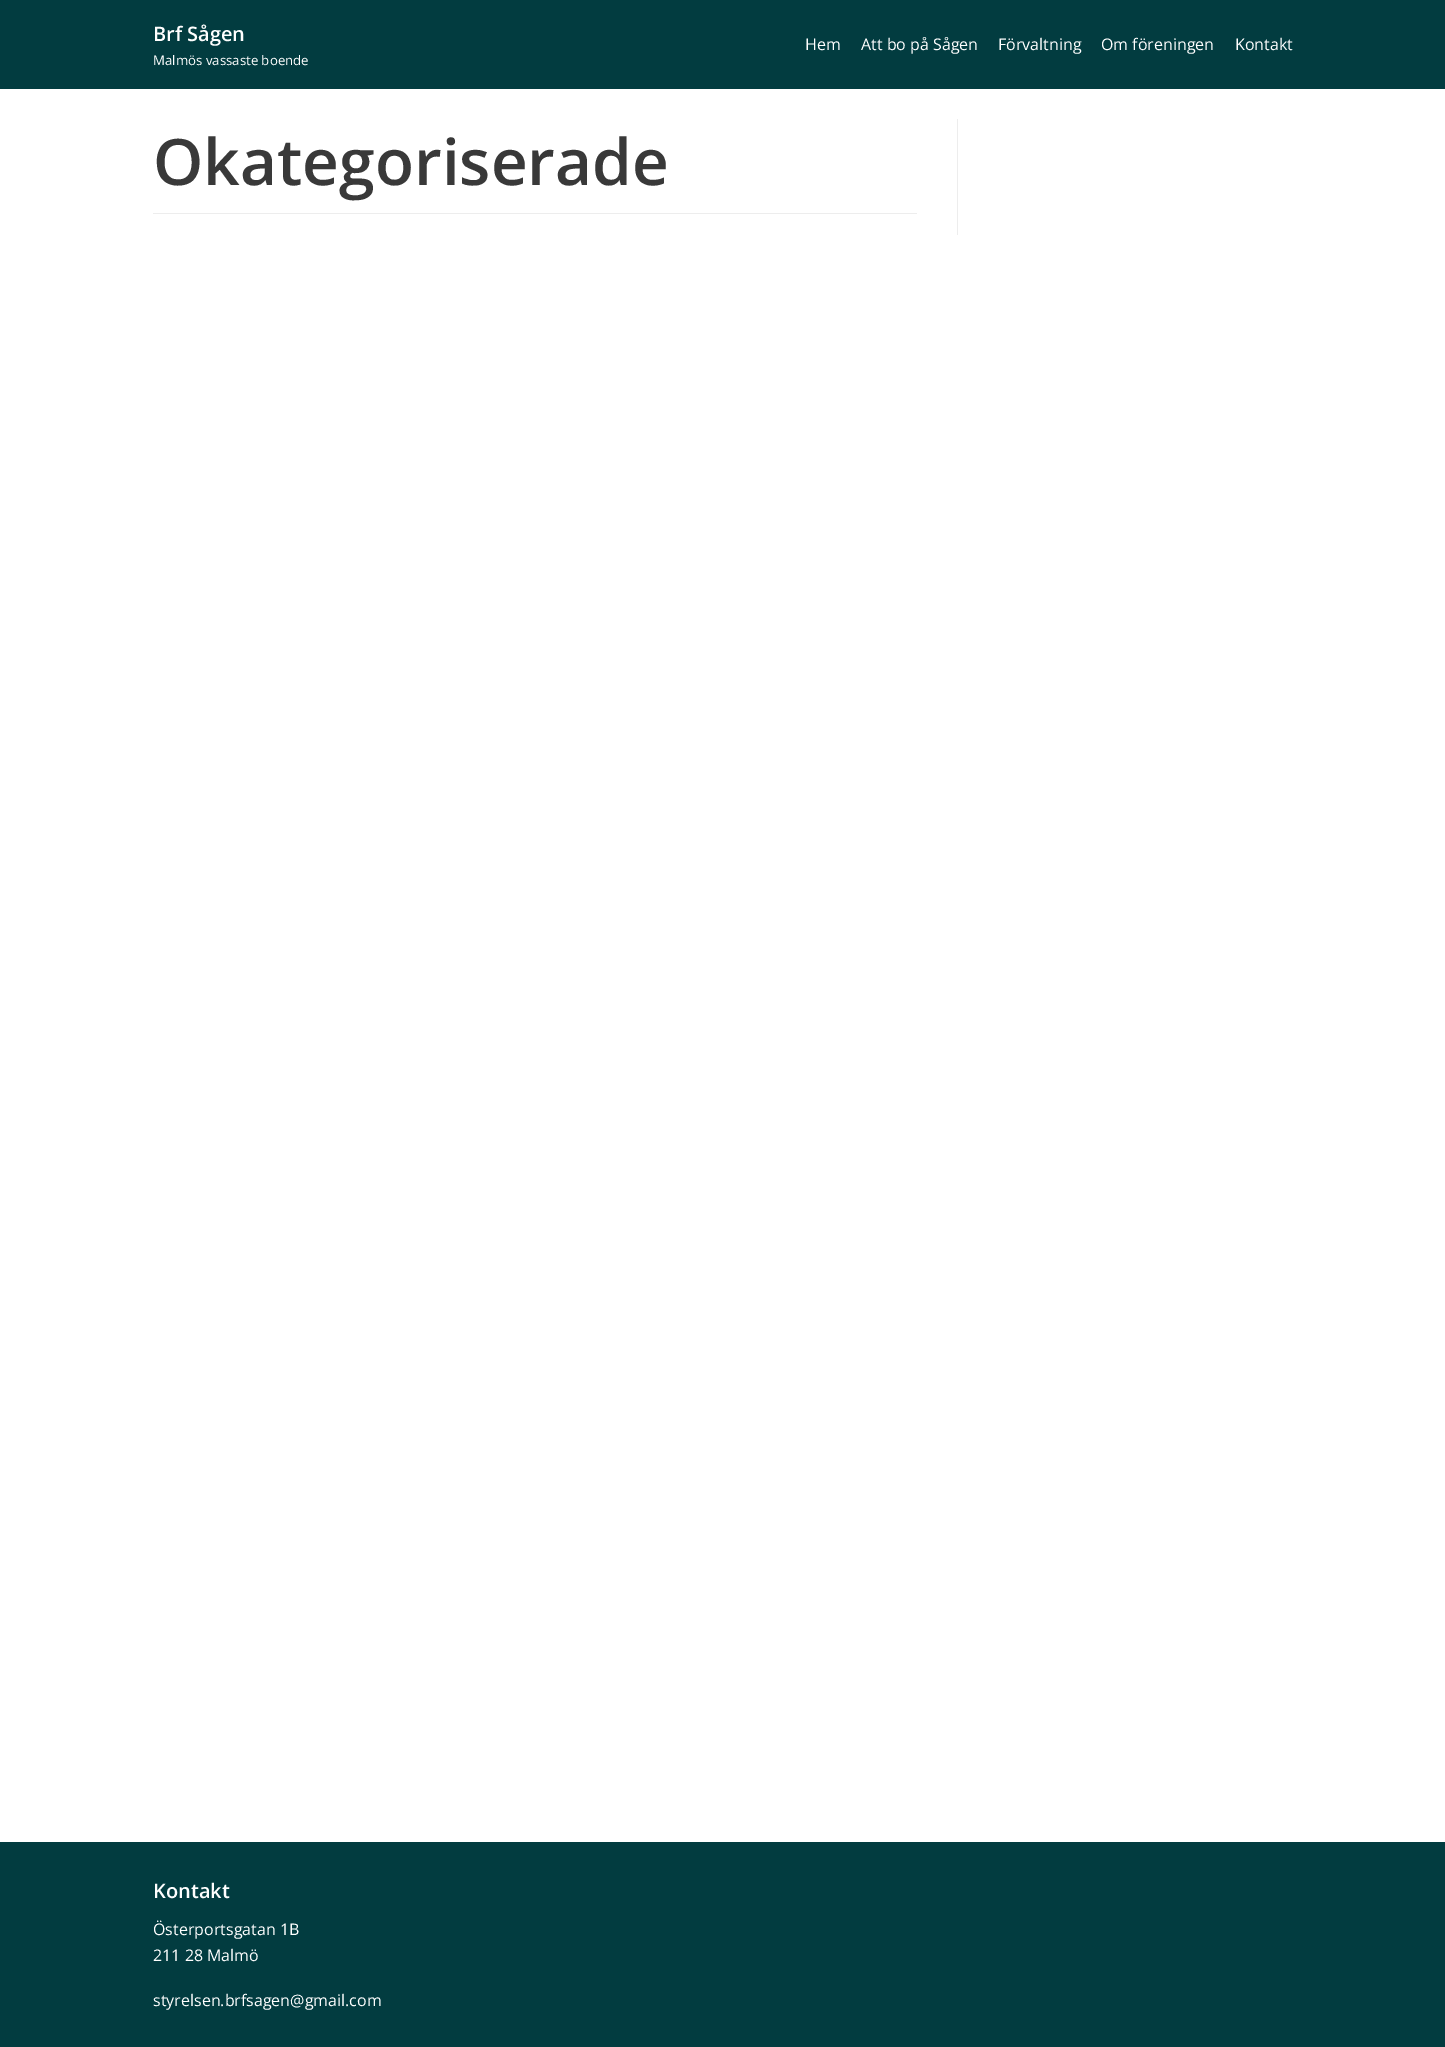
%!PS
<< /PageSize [1445 2047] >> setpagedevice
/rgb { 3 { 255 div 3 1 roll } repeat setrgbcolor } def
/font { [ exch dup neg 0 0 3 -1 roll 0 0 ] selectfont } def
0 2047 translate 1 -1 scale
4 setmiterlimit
255 255 255 rgb
0 0 1445 2047 rectfill
[
  [0 0 1445 89 2 60 64]
  [153 213 764 1 237 237 237]
  [957 119 1 116 237 237 237]
  [0 1842 1445 205 2 60 64]
] { aload pop rgb rectfill } forall
/OpenSans-SemiBold 20 font
255 255 255 rgb
153 41 moveto (Brf Sågen) show
/OpenSans-Regular 13.25 font
153 65 moveto (Malmös vassaste boende) show
/OpenSans-Regular 16 font
[
  [(Hem) 805 50]
  [(Att bo på Sågen) 861 50]
  [(Förvaltning) 998 50]
  [(Om föreningen) 1101 50]
  [(Kontakt) 1235 50]
] { aload pop moveto show } forall
/OpenSans-SemiBold 64 font
57 57 57 rgb
153 185 moveto (Okategoriserade) show
/OpenSans-SemiBold 20 font
255 255 255 rgb
153 1898 moveto (Kontakt) show
/OpenSans-Regular 16 font
[
  [(Österportsgatan 1B) 153 1935]
  [(211 28 Malmö) 153 1961]
  [(styrelsen.brfsagen@gmail.com) 153 2006]
] { aload pop moveto show } forall
showpage
